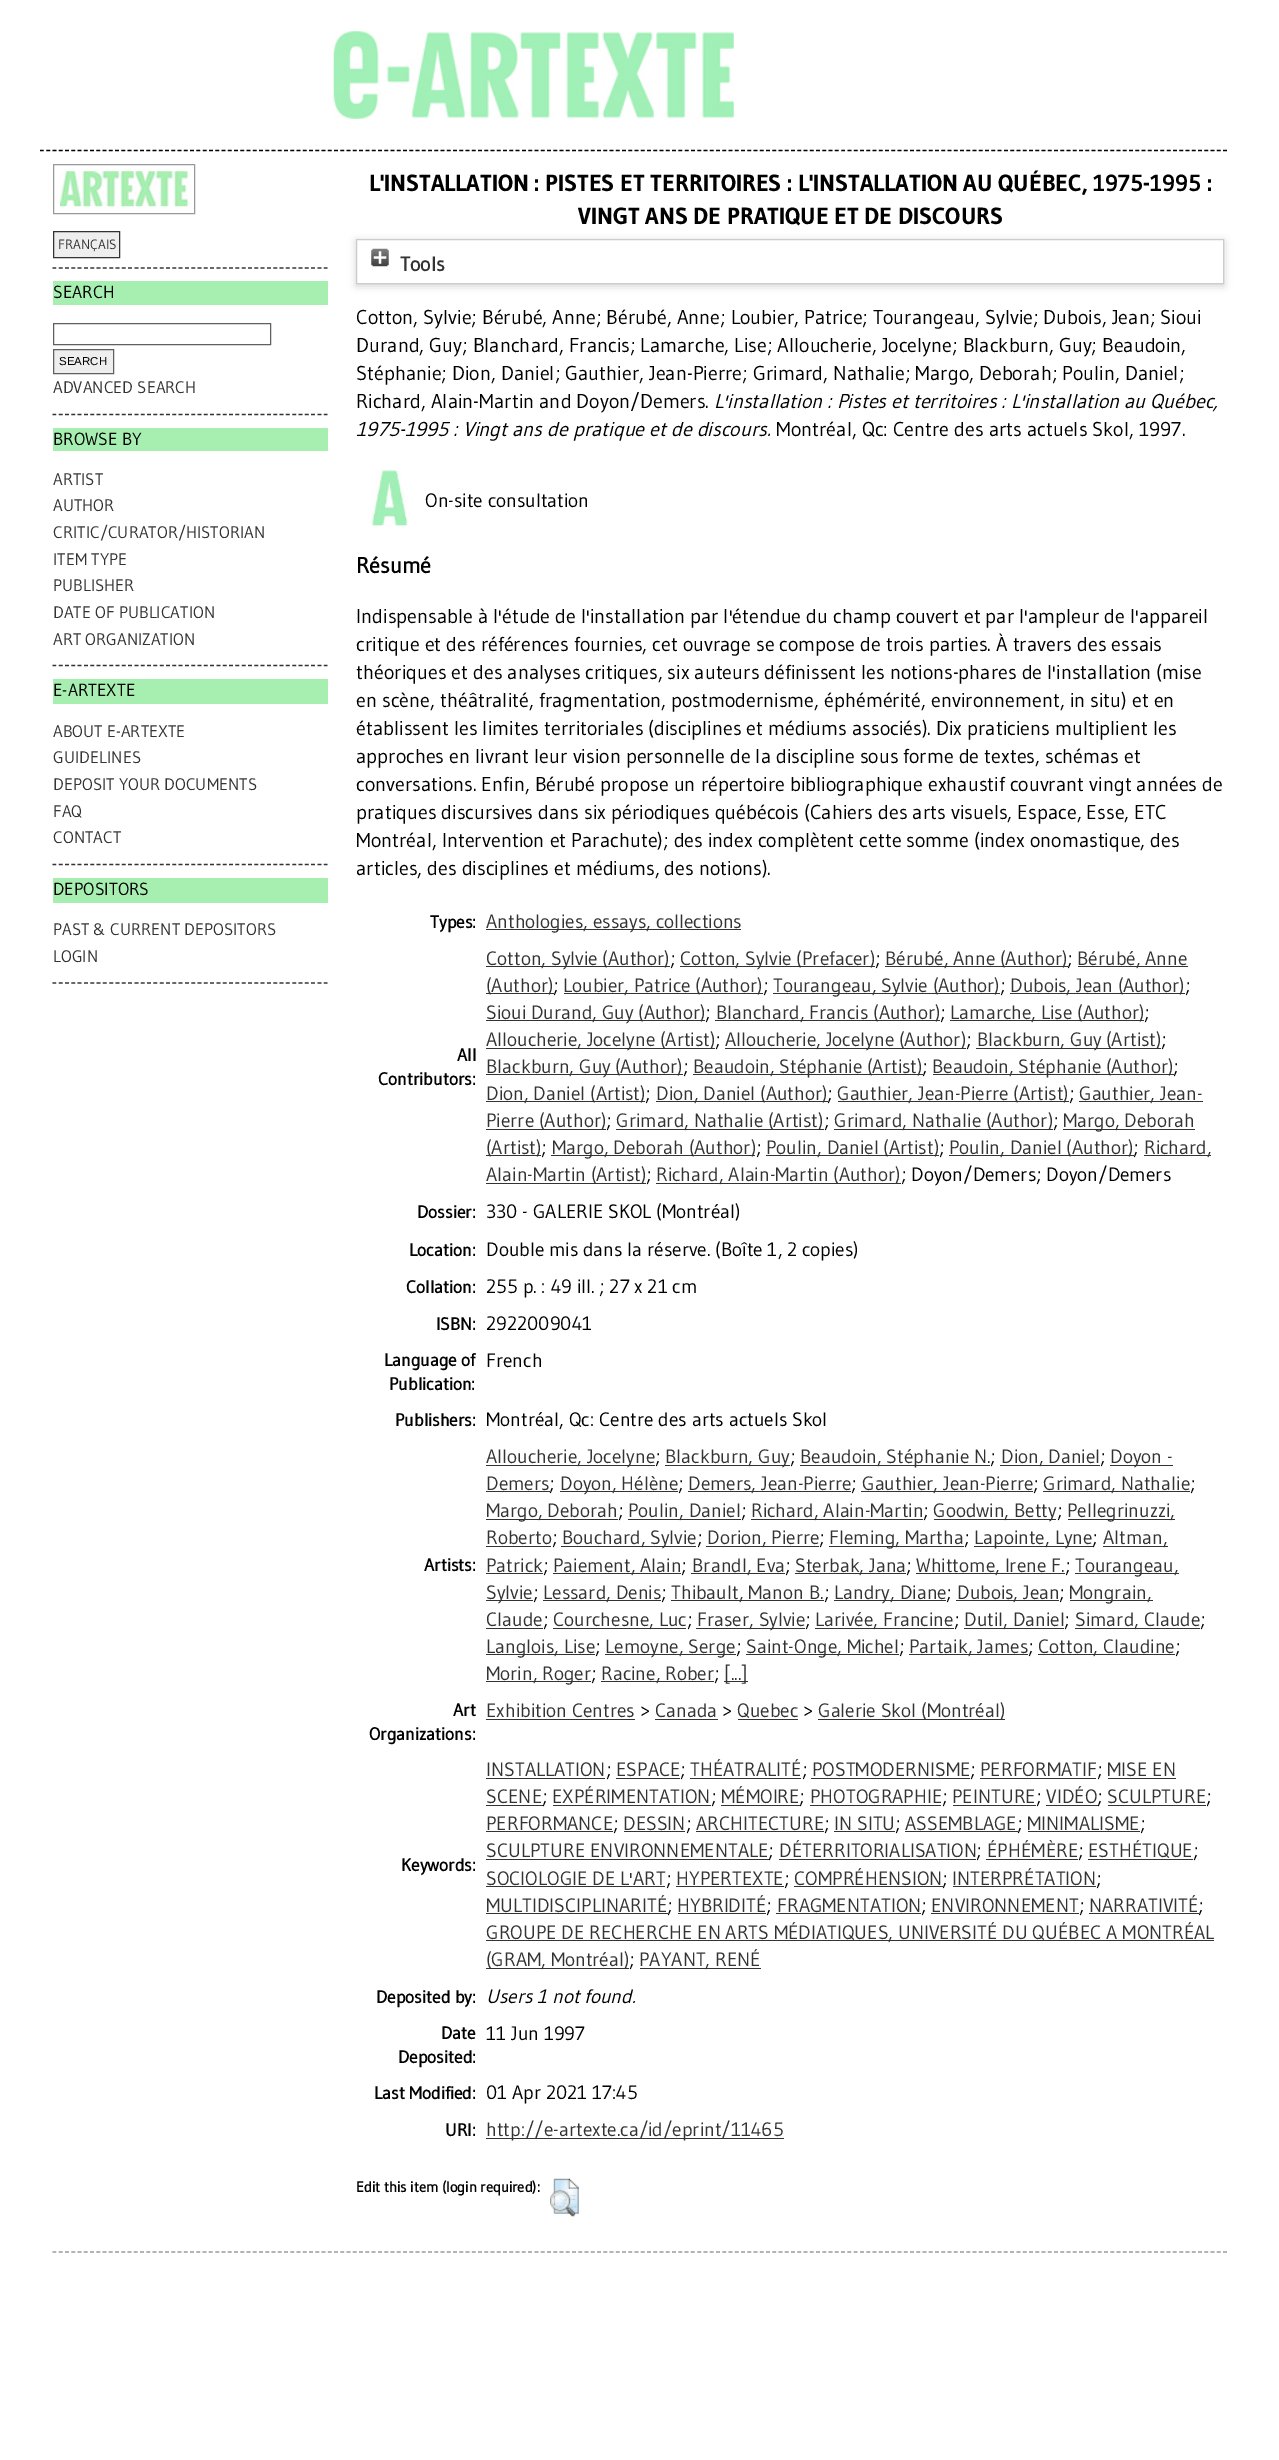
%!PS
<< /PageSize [1279 2460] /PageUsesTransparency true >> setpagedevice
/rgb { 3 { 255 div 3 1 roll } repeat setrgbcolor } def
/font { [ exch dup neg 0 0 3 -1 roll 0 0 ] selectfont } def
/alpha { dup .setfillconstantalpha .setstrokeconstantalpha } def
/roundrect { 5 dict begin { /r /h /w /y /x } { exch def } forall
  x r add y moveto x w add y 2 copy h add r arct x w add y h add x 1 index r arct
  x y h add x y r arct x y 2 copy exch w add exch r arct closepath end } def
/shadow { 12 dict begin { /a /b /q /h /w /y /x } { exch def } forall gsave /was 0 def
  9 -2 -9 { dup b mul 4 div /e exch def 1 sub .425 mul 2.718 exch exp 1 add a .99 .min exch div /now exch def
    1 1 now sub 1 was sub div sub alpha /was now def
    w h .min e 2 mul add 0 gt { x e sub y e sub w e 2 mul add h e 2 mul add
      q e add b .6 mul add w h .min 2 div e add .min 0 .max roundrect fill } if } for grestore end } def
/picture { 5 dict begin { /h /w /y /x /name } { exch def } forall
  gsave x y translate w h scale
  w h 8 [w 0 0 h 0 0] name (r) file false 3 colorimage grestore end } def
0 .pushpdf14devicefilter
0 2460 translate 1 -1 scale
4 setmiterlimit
255 255 255 rgb
0 0 1279 2460 rectfill
0 0 0 rgb
1.2 setlinewidth
[3.75 2.51] 0 setdash
40 150.5 moveto 1227.5 150.5 lineto stroke
(img/1.rgb) 333 31 401 88 picture
153 153 153 rgb
1 setlinewidth
[] 0 setdash
53.5 164.5 141 49 rectstroke
(img/2.rgb) 60 171 128 36 picture
51 51 51 rgb
1.2 setlinewidth
[3.75 2.56] 0 setdash
52.5 268 moveto 327.5 268 lineto stroke
238 238 238 rgb
53.5 231.5 moveto 119.5 231.5 lineto 119.5 257.5 lineto 53.5 257.5 lineto closepath gsave fill grestore
51 51 51 rgb
1 setlinewidth
[] 0 setdash
stroke
1.2 setlinewidth
[3.75 2.56] 0 setdash
52.5 414.5 moveto 327.5 414.5 lineto stroke
167 239 176 rgb
53 281 275 24 rectfill
96 96 96 rgb
1 setlinewidth
[] 0 setdash
53.5 323.5 217 21 rectstroke
238 238 238 rgb
53.5 349.5 moveto 113.5 349.5 lineto 113.5 373.5 lineto 53.5 373.5 lineto closepath gsave fill grestore
96 96 96 rgb
stroke
51 51 51 rgb
1.2 setlinewidth
[3.75 2.56] 0 setdash
52.5 665.5 moveto 327.5 665.5 lineto stroke
167 239 176 rgb
53 428 275 23 rectfill
51 51 51 rgb
52.5 864.5 moveto 327.5 864.5 lineto stroke
167 239 176 rgb
53 679 275 25 rectfill
51 51 51 rgb
52.5 983 moveto 327.5 983 lineto stroke
167 239 176 rgb
53 878 275 25 rectfill
100 100 100 rgb
356 241 868 45 0 4 0.3 shadow
255 255 255 rgb
356.5 239.5 moveto 1223.5 239.5 lineto 1223.5 283.5 lineto 356.5 283.5 lineto closepath gsave fill grestore
204 204 204 rgb
1 setlinewidth
[] 0 setdash
stroke
(img/3.rgb) 371 248 18 19 picture
(img/4.rgb) 372 470 36 57 picture
[
  [486 929 255 1 51 51 51]
  [486 966 184 1 51 51 51]
  [680 966 195 1 51 51 51]
  [885 966 183 1 51 51 51]
  [1078 966 110 1 51 51 51]
  [486 993 68 1 51 51 51]
  [564 993 199 1 51 51 51]
  [773 993 227 1 51 51 51]
  [1010 993 175 1 51 51 51]
  [486 1020 219 1 51 51 51]
  [715 1020 225 1 51 51 51]
  [950 1020 194 1 51 51 51]
  [486 1048 229 1 51 51 51]
  [725 1048 241 1 51 51 51]
  [976 1048 125 1 51 51 51]
  [1101 1048 60 1 51 51 51]
  [486 1074 124 1 51 51 51]
  [610 1074 73 1 51 51 51]
  [693 1074 168 1 51 51 51]
  [861 1074 62 1 51 51 51]
  [933 1074 241 1 51 51 51]
  [486 1101 159 1 51 51 51]
  [656 1101 172 1 51 51 51]
  [838 1101 231 1 51 51 51]
  [1079 1101 124 1 51 51 51]
  [486 1129 120 1 51 51 51]
  [616 1129 208 1 51 51 51]
  [834 1129 219 1 51 51 51]
  [1063 1129 132 1 51 51 51]
  [486 1155 55 1 51 51 51]
  [551 1155 204 1 51 51 51]
  [766 1155 173 1 51 51 51]
  [949 1155 185 1 51 51 51]
  [1144 1155 67 1 51 51 51]
  [486 1183 160 1 51 51 51]
  [656 1183 245 1 51 51 51]
  [486 1465 169 1 51 51 51]
  [665 1465 125 1 51 51 51]
  [800 1465 190 1 51 51 51]
  [1000 1465 100 1 51 51 51]
  [1110 1465 63 1 51 51 51]
  [486 1491 64 1 51 51 51]
  [560 1491 118 1 51 51 51]
  [688 1491 163 1 51 51 51]
  [861 1491 172 1 51 51 51]
  [1043 1491 147 1 51 51 51]
  [486 1519 132 1 51 51 51]
  [628 1519 113 1 51 51 51]
  [751 1519 172 1 51 51 51]
  [934 1519 122 1 51 51 51]
  [1068 1519 107 1 51 51 51]
  [486 1546 65 1 51 51 51]
  [561 1546 135 1 51 51 51]
  [706 1546 113 1 51 51 51]
  [829 1546 135 1 51 51 51]
  [974 1546 119 1 51 51 51]
  [1103 1546 65 1 51 51 51]
  [486 1573 57 1 51 51 51]
  [553 1573 128 1 51 51 51]
  [691 1573 94 1 51 51 51]
  [795 1573 111 1 51 51 51]
  [916 1573 149 1 51 51 51]
  [1075 1573 104 1 51 51 51]
  [486 1600 47 1 51 51 51]
  [543 1600 118 1 51 51 51]
  [671 1600 153 1 51 51 51]
  [834 1600 112 1 51 51 51]
  [956 1600 103 1 51 51 51]
  [1070 1600 83 1 51 51 51]
  [486 1628 57 1 51 51 51]
  [553 1628 133 1 51 51 51]
  [696 1628 109 1 51 51 51]
  [815 1628 139 1 51 51 51]
  [964 1628 100 1 51 51 51]
  [1075 1628 125 1 51 51 51]
  [486 1654 109 1 51 51 51]
  [605 1654 131 1 51 51 51]
  [746 1654 153 1 51 51 51]
  [909 1654 119 1 51 51 51]
  [1038 1654 137 1 51 51 51]
  [486 1681 105 1 51 51 51]
  [601 1681 113 1 51 51 51]
  [724 1681 24 1 51 51 51]
  [486 1719 149 1 51 51 51]
  [655 1719 63 1 51 51 51]
  [738 1719 60 1 51 51 51]
  [818 1719 187 1 51 51 51]
  [486 1778 119 1 51 51 51]
  [616 1778 64 1 51 51 51]
  [690 1778 111 1 51 51 51]
  [811 1778 159 1 51 51 51]
  [980 1778 116 1 51 51 51]
  [1108 1778 68 1 51 51 51]
  [486 1805 57 1 51 51 51]
  [553 1805 158 1 51 51 51]
  [721 1805 79 1 51 51 51]
  [810 1805 131 1 51 51 51]
  [953 1805 83 1 51 51 51]
  [1046 1805 52 1 51 51 51]
  [1108 1805 98 1 51 51 51]
  [486 1831 127 1 51 51 51]
  [624 1831 61 1 51 51 51]
  [696 1831 128 1 51 51 51]
  [834 1831 61 1 51 51 51]
  [905 1831 113 1 51 51 51]
  [1028 1831 112 1 51 51 51]
  [486 1859 283 1 51 51 51]
  [779 1859 197 1 51 51 51]
  [986 1859 92 1 51 51 51]
  [1088 1859 105 1 51 51 51]
  [486 1886 179 1 51 51 51]
  [676 1886 108 1 51 51 51]
  [794 1886 149 1 51 51 51]
  [953 1886 143 1 51 51 51]
  [486 1913 182 1 51 51 51]
  [678 1913 88 1 51 51 51]
  [776 1913 145 1 51 51 51]
  [931 1913 148 1 51 51 51]
  [1089 1913 110 1 51 51 51]
  [486 1940 728 1 51 51 51]
  [486 1968 143 1 51 51 51]
  [640 1968 121 1 51 51 51]
  [486 2138 298 1 51 51 51]
] { aload pop rgb rectfill } forall
(img/5.rgb) 550 2178 29 39 picture
153 153 153 rgb
1.2 setlinewidth
[3.75 2.51] 0 setdash
52.5 2252 moveto 1227.5 2252 lineto stroke
/Gudea-Regular 13.5 font
51 51 51 rgb
58 249 moveto (FRANÇAIS) show
/Gudea-Regular 17.5 font
0 0 0 rgb
53 298 moveto (SEARCH) show
/LiberationSans-Regular 11.5 font
59 365 moveto (SEARCH) show
/Gudea-Regular 16.7 font
51 51 51 rgb
53 393 moveto (ADVANCED SEARCH) show
/Gudea-Regular 17.5 font
0 0 0 rgb
53 445 moveto (BROWSE BY) show
/Gudea-Regular 16.7 font
51 51 51 rgb
[
  [(ARTIST) 53 485]
  [(AUTHOR) 53 511]
  [(CRITIC/CURATOR/HISTORIAN) 53 538]
  [(ITEM TYPE) 53 565]
  [(PUBLISHER) 53 591]
  [(DATE OF PUBLICATION) 53 618]
  [(ART ORGANIZATION) 53 645]
] { aload pop moveto show } forall
/Gudea-Regular 17.5 font
0 0 0 rgb
53 696 moveto (E-ARTEXTE) show
/Gudea-Regular 16.7 font
51 51 51 rgb
[
  [(ABOUT E-ARTEXTE) 53 737]
  [(GUIDELINES) 53 763]
  [(DEPOSIT YOUR DOCUMENTS) 53 790]
  [(FAQ) 53 817]
  [(CONTACT) 53 843]
] { aload pop moveto show } forall
/Gudea-Regular 17.5 font
0 0 0 rgb
53 895 moveto (DEPOSITORS) show
/Gudea-Regular 16.7 font
51 51 51 rgb
53 935 moveto (PAST & CURRENT DEPOSITORS) show
53 962 moveto (LOGIN) show
/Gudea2-Bold 23.35 font
0 0 0 rgb
369 191 moveto (L'INSTALLATION : PISTES ET TERRITOIRES : L'INSTALLATION AU QUÉBEC, 1975-1995 :) show
578 224 moveto (VINGT ANS DE PRATIQUE ET DE DISCOURS) show
/Gudea-Bold 20 font
51 51 51 rgb
400 271 moveto (Tools) show
/Gudea-Regular 20 font
0 0 0 rgb
[
  [(Cotton, Sylvie; Bérubé, Anne; Bérubé, Anne; Loubier, Patrice; Tourangeau, Sylvie; Dubois, Jean; Sioui) 356 324]
  [(Durand, Guy; Blanchard, Francis; Lamarche, Lise; Alloucherie, Jocelyne; Blackburn, Guy; Beaudoin,) 356 352]
  [(Stéphanie; Dion, Daniel; Gauthier, Jean-Pierre; Grimard, Nathalie; Margo, Deborah; Poulin, Daniel;) 356 380]
  [(Richard, Alain-Martin and Doyon/Demers.) 356 408]
] { aload pop moveto show } forall
/Gudea-Italic 20 font
714 408 moveto (L'installation : Pistes et territoires : L'installation au Québec,) show
356 436 moveto (1975-1995 : Vingt ans de pratique et de discours.) show
/Gudea-Regular 20 font
776 436 moveto (Montréal, Qc: Centre des arts actuels Skol, 1997.) show
/Gudea-Regular 19.35 font
425 507 moveto (On-site consultation) show
/Gudea-Bold 22 font
356 573 moveto (Résumé) show
/Gudea-Regular 20 font
[
  [(Indispensable à l'étude de l'installation par l'étendue du champ couvert et par l'ampleur de l'appareil) 356 623]
  [(critique et des références fournies, cet ouvrage se compose de trois parties. À travers des essais) 356 651]
  [(théoriques et des analyses critiques, six auteurs définissent les notions-phares de l'installation \(mise) 356 679]
  [(en scène, théâtralité, fragmentation, postmodernisme, éphémérité, environnement, in situ\) et en) 356 707]
  [(établissent les limites territoriales \(disciplines et médiums associés\). Dix praticiens multiplient les) 356 735]
  [(approches en livrant leur vision personnelle de la discipline sous forme de textes, schémas et) 356 763]
  [(conversations. Enfin, Bérubé propose un répertoire bibliographique exhaustif couvrant vingt années de) 356 791]
  [(pratiques discursives dans six périodiques québécois \(Cahiers des arts visuels, Espace, Esse, ETC) 356 819]
  [(Montréal, Intervention et Parachute\); des index complètent cette somme \(index onomastique, des) 356 847]
  [(articles, des disciplines et médiums, des notions\).) 356 875]
] { aload pop moveto show } forall
/Gudea-Bold 17.5 font
430 928 moveto (Types:) show
/Gudea-Regular 19.35 font
51 51 51 rgb
486 928 moveto (Anthologies, essays, collections) show
/Gudea-Bold 17.5 font
0 0 0 rgb
457 1061 moveto (All) show
378 1085 moveto (Contributors:) show
/Gudea-Regular 19.35 font
51 51 51 rgb
486 965 moveto (Cotton, Sylvie \(Author\)) show
0 0 0 rgb
670 965 moveto (;) show
51 51 51 rgb
680 965 moveto (Cotton, Sylvie \(Prefacer\)) show
0 0 0 rgb
875 965 moveto (;) show
51 51 51 rgb
885 965 moveto (Bérubé, Anne \(Author\)) show
0 0 0 rgb
1067 965 moveto (;) show
51 51 51 rgb
1077 965 moveto (Bérubé, Anne) show
486 992 moveto (\(Author\)) show
0 0 0 rgb
553 992 moveto (;) show
51 51 51 rgb
563 992 moveto (Loubier, Patrice \(Author\)) show
0 0 0 rgb
763 992 moveto (;) show
51 51 51 rgb
773 992 moveto (Tourangeau, Sylvie \(Author\)) show
0 0 0 rgb
1000 992 moveto (;) show
51 51 51 rgb
1010 992 moveto (Dubois, Jean \(Author\)) show
0 0 0 rgb
1185 992 moveto (;) show
51 51 51 rgb
486 1019 moveto (Sioui Durand, Guy \(Author\)) show
0 0 0 rgb
705 1019 moveto (;) show
51 51 51 rgb
716 1019 moveto (Blanchard, Francis \(Author\)) show
0 0 0 rgb
940 1019 moveto (;) show
51 51 51 rgb
950 1019 moveto (Lamarche, Lise \(Author\)) show
0 0 0 rgb
1144 1019 moveto (;) show
51 51 51 rgb
486 1046 moveto (Alloucherie, Jocelyne \(Artist\)) show
0 0 0 rgb
715 1046 moveto (;) show
51 51 51 rgb
725 1046 moveto (Alloucherie, Jocelyne \(Author\)) show
0 0 0 rgb
966 1046 moveto (;) show
51 51 51 rgb
977 1046 moveto (Blackburn, Guy) show
1106 1046 moveto (\(Artist\)) show
0 0 0 rgb
1161 1046 moveto (;) show
51 51 51 rgb
486 1073 moveto (Blackburn, Guy) show
615 1073 moveto (\(Author\)) show
0 0 0 rgb
683 1073 moveto (;) show
51 51 51 rgb
693 1073 moveto (Beaudoin, Stéphanie) show
867 1073 moveto (\(Artist\)) show
0 0 0 rgb
922 1073 moveto (;) show
51 51 51 rgb
932 1073 moveto (Beaudoin, Stéphanie \(Author\)) show
0 0 0 rgb
1173 1073 moveto (;) show
51 51 51 rgb
486 1100 moveto (Dion, Daniel \(Artist\)) show
0 0 0 rgb
645 1100 moveto (;) show
51 51 51 rgb
656 1100 moveto (Dion, Daniel \(Author\)) show
0 0 0 rgb
827 1100 moveto (;) show
51 51 51 rgb
837 1100 moveto (Gauthier, Jean-Pierre \(Artist\)) show
0 0 0 rgb
1069 1100 moveto (;) show
51 51 51 rgb
1079 1100 moveto (Gauthier, Jean-) show
486 1127 moveto (Pierre \(Author\)) show
0 0 0 rgb
606 1127 moveto (;) show
51 51 51 rgb
616 1127 moveto (Grimard, Nathalie \(Artist\)) show
0 0 0 rgb
824 1127 moveto (;) show
51 51 51 rgb
834 1127 moveto (Grimard, Nathalie \(Author\)) show
0 0 0 rgb
1053 1127 moveto (;) show
51 51 51 rgb
1063 1127 moveto (Margo, Deborah) show
486 1154 moveto (\(Artist\)) show
0 0 0 rgb
541 1154 moveto (;) show
51 51 51 rgb
552 1154 moveto (Margo, Deborah \(Author\)) show
0 0 0 rgb
756 1154 moveto (;) show
51 51 51 rgb
766 1154 moveto (Poulin, Daniel \(Artist\)) show
0 0 0 rgb
939 1154 moveto (;) show
51 51 51 rgb
949 1154 moveto (Poulin, Daniel \(Author\)) show
0 0 0 rgb
1133 1154 moveto (;) show
51 51 51 rgb
1144 1154 moveto (Richard,) show
486 1181 moveto (Alain-Martin \(Artist\)) show
0 0 0 rgb
646 1181 moveto (;) show
51 51 51 rgb
656 1181 moveto (Richard, Alain-Martin \(Author\)) show
0 0 0 rgb
901 1181 moveto (; Doyon/Demers; Doyon/Demers) show
/Gudea-Bold 17.5 font
417 1218 moveto (Dossier:) show
/Gudea-Regular 19.35 font
486 1218 moveto (330 - GALERIE SKOL \(Montréal\)) show
/Gudea-Bold 17.5 font
409 1256 moveto (Location:) show
/Gudea-Regular 19.35 font
486 1256 moveto (Double mis dans la réserve. \(Boîte 1, 2 copies\)) show
/Gudea-Bold 17.5 font
406 1293 moveto (Collation:) show
/Gudea-Regular 19.35 font
486 1293 moveto (255 p. : 49 ill. ; 27 x 21 cm) show
/Gudea-Bold 17.5 font
436 1330 moveto (ISBN:) show
/Gudea-Regular 19.35 font
486 1330 moveto (2922009041) show
/Gudea-Bold 17.5 font
384 1366 moveto (Language of) show
389 1390 moveto (Publication:) show
/Gudea-Regular 19.35 font
486 1367 moveto (French) show
/Gudea-Bold 17.5 font
395 1426 moveto (Publishers:) show
/Gudea-Regular 19.35 font
486 1426 moveto (Montréal, Qc: Centre des arts actuels Skol) show
/Gudea-Bold 17.5 font
424 1571 moveto (Artists:) show
/Gudea-Regular 19.35 font
51 51 51 rgb
486 1463 moveto (Alloucherie, Jocelyne) show
0 0 0 rgb
655 1463 moveto (;) show
51 51 51 rgb
665 1463 moveto (Blackburn, Guy) show
0 0 0 rgb
790 1463 moveto (;) show
51 51 51 rgb
800 1463 moveto (Beaudoin, Stéphanie N.) show
0 0 0 rgb
990 1463 moveto (;) show
51 51 51 rgb
1001 1463 moveto (Dion, Daniel) show
0 0 0 rgb
1100 1463 moveto (;) show
51 51 51 rgb
1110 1463 moveto (Doyon -) show
486 1490 moveto (Demers) show
0 0 0 rgb
549 1490 moveto (;) show
51 51 51 rgb
560 1490 moveto (Doyon, Hélène) show
0 0 0 rgb
678 1490 moveto (;) show
51 51 51 rgb
688 1490 moveto (Demers, Jean-Pierre) show
0 0 0 rgb
851 1490 moveto (;) show
51 51 51 rgb
862 1490 moveto (Gauthier, Jean-Pierre) show
0 0 0 rgb
1033 1490 moveto (;) show
51 51 51 rgb
1043 1490 moveto (Grimard, Nathalie) show
0 0 0 rgb
1190 1490 moveto (;) show
51 51 51 rgb
486 1517 moveto (Margo, Deborah) show
0 0 0 rgb
618 1517 moveto (;) show
51 51 51 rgb
628 1517 moveto (Poulin, Daniel) show
0 0 0 rgb
741 1517 moveto (;) show
51 51 51 rgb
751 1517 moveto (Richard, Alain-Martin) show
0 0 0 rgb
923 1517 moveto (;) show
51 51 51 rgb
933 1517 moveto (Goodwin, Betty) show
0 0 0 rgb
1057 1517 moveto (;) show
51 51 51 rgb
1067 1517 moveto (Pellegrinuzzi,) show
486 1544 moveto (Roberto) show
0 0 0 rgb
552 1544 moveto (;) show
51 51 51 rgb
562 1544 moveto (Bouchard, Sylvie) show
0 0 0 rgb
697 1544 moveto (;) show
51 51 51 rgb
707 1544 moveto (Dorion, Pierre) show
0 0 0 rgb
819 1544 moveto (;) show
51 51 51 rgb
829 1544 moveto (Fleming, Martha) show
0 0 0 rgb
964 1544 moveto (;) show
51 51 51 rgb
974 1544 moveto (Lapointe, Lyne) show
0 0 0 rgb
1092 1544 moveto (;) show
51 51 51 rgb
1103 1544 moveto (Altman,) show
486 1572 moveto (Patrick) show
0 0 0 rgb
543 1572 moveto (;) show
51 51 51 rgb
553 1572 moveto (Paiement, Alain) show
0 0 0 rgb
681 1572 moveto (;) show
51 51 51 rgb
692 1572 moveto (Brandl, Eva) show
0 0 0 rgb
785 1572 moveto (;) show
51 51 51 rgb
795 1572 moveto (Sterbak, Jana) show
0 0 0 rgb
906 1572 moveto (;) show
51 51 51 rgb
916 1572 moveto (Whittome, Irene F.) show
0 0 0 rgb
1065 1572 moveto (;) show
51 51 51 rgb
1075 1572 moveto (Tourangeau,) show
486 1599 moveto (Sylvie) show
0 0 0 rgb
533 1599 moveto (;) show
51 51 51 rgb
543 1599 moveto (Lessard, Denis) show
0 0 0 rgb
661 1599 moveto (;) show
51 51 51 rgb
671 1599 moveto (Thibault, Manon B.) show
0 0 0 rgb
824 1599 moveto (;) show
51 51 51 rgb
834 1599 moveto (Landry, Diane) show
0 0 0 rgb
946 1599 moveto (;) show
51 51 51 rgb
957 1599 moveto (Dubois, Jean) show
0 0 0 rgb
1059 1599 moveto (;) show
51 51 51 rgb
1069 1599 moveto (Mongrain,) show
486 1626 moveto (Claude) show
0 0 0 rgb
543 1626 moveto (;) show
51 51 51 rgb
553 1626 moveto (Courchesne, Luc) show
0 0 0 rgb
687 1626 moveto (;) show
51 51 51 rgb
697 1626 moveto (Fraser, Sylvie) show
0 0 0 rgb
805 1626 moveto (;) show
51 51 51 rgb
815 1626 moveto (Larivée, Francine) show
0 0 0 rgb
954 1626 moveto (;) show
51 51 51 rgb
964 1626 moveto (Dutil, Daniel) show
0 0 0 rgb
1064 1626 moveto (;) show
51 51 51 rgb
1075 1626 moveto (Simard, Claude) show
0 0 0 rgb
1200 1626 moveto (;) show
51 51 51 rgb
486 1653 moveto (Langlois, Lise) show
0 0 0 rgb
595 1653 moveto (;) show
51 51 51 rgb
605 1653 moveto (Lemoyne, Serge) show
0 0 0 rgb
736 1653 moveto (;) show
51 51 51 rgb
746 1653 moveto (Saint-Onge, Michel) show
0 0 0 rgb
899 1653 moveto (;) show
51 51 51 rgb
909 1653 moveto (Partaik, James) show
0 0 0 rgb
1028 1653 moveto (;) show
51 51 51 rgb
1038 1653 moveto (Cotton, Claudine) show
0 0 0 rgb
1175 1653 moveto (;) show
51 51 51 rgb
486 1680 moveto (Morin, Roger) show
0 0 0 rgb
591 1680 moveto (;) show
51 51 51 rgb
601 1680 moveto (Racine, Rober) show
0 0 0 rgb
714 1680 moveto (;) show
51 51 51 rgb
724 1680 moveto ([...]) show
/Gudea-Bold 17.5 font
0 0 0 rgb
453 1716 moveto (Art) show
369 1740 moveto (Organizations:) show
/Gudea-Regular 19.35 font
51 51 51 rgb
486 1717 moveto (Exhibition Centres) show
0 0 0 rgb
640 1717 moveto (>) show
51 51 51 rgb
655 1717 moveto (Canada) show
0 0 0 rgb
722 1717 moveto (>) show
51 51 51 rgb
737 1717 moveto (Quebec) show
0 0 0 rgb
803 1717 moveto (>) show
51 51 51 rgb
818 1717 moveto (Galerie Skol \(Montréal\)) show
/Gudea-Bold 17.5 font
0 0 0 rgb
401 1871 moveto (Keywords:) show
/Gudea-Regular 19.35 font
51 51 51 rgb
486 1776 moveto (INSTALLATION) show
0 0 0 rgb
606 1776 moveto (;) show
51 51 51 rgb
616 1776 moveto (ESPACE) show
0 0 0 rgb
680 1776 moveto (;) show
51 51 51 rgb
690 1776 moveto (THÉATRALITÉ) show
0 0 0 rgb
802 1776 moveto (;) show
51 51 51 rgb
812 1776 moveto (POSTMODERNISME) show
0 0 0 rgb
970 1776 moveto (;) show
51 51 51 rgb
980 1776 moveto (PERFORMATIF) show
0 0 0 rgb
1097 1776 moveto (;) show
51 51 51 rgb
1107 1776 moveto (MISE EN) show
486 1803 moveto (SCENE) show
0 0 0 rgb
542 1803 moveto (;) show
51 51 51 rgb
552 1803 moveto (EXPÉRIMENTATION) show
0 0 0 rgb
711 1803 moveto (;) show
51 51 51 rgb
721 1803 moveto (MÉMOIRE) show
0 0 0 rgb
799 1803 moveto (;) show
51 51 51 rgb
810 1803 moveto (PHOTOGRAPHIE) show
0 0 0 rgb
942 1803 moveto (;) show
51 51 51 rgb
952 1803 moveto (PEINTURE) show
0 0 0 rgb
1036 1803 moveto (;) show
51 51 51 rgb
1046 1803 moveto (VIDÉO) show
0 0 0 rgb
1097 1803 moveto (;) show
51 51 51 rgb
1107 1803 moveto (SCULPTURE) show
0 0 0 rgb
1206 1803 moveto (;) show
51 51 51 rgb
486 1830 moveto (PERFORMANCE) show
0 0 0 rgb
613 1830 moveto (;) show
51 51 51 rgb
623 1830 moveto (DESSIN) show
0 0 0 rgb
686 1830 moveto (;) show
51 51 51 rgb
696 1830 moveto (ARCHITECTURE) show
0 0 0 rgb
824 1830 moveto (;) show
51 51 51 rgb
834 1830 moveto (IN SITU) show
0 0 0 rgb
895 1830 moveto (;) show
51 51 51 rgb
905 1830 moveto (ASSEMBLAGE) show
0 0 0 rgb
1017 1830 moveto (;) show
51 51 51 rgb
1027 1830 moveto (MINIMALISME) show
0 0 0 rgb
1140 1830 moveto (;) show
51 51 51 rgb
486 1857 moveto (SCULPTURE ENVIRONNEMENTALE) show
0 0 0 rgb
768 1857 moveto (;) show
51 51 51 rgb
779 1857 moveto (DÉTERRITORIALISATION) show
0 0 0 rgb
976 1857 moveto (;) show
51 51 51 rgb
987 1857 moveto (ÉPHÉMÈRE) show
0 0 0 rgb
1078 1857 moveto (;) show
51 51 51 rgb
1088 1857 moveto (ESTHÉTIQUE) show
0 0 0 rgb
1193 1857 moveto (;) show
51 51 51 rgb
486 1885 moveto (SOCIOLOGIE DE L'ART) show
0 0 0 rgb
666 1885 moveto (;) show
51 51 51 rgb
676 1885 moveto (HYPERTEXTE) show
0 0 0 rgb
784 1885 moveto (;) show
51 51 51 rgb
794 1885 moveto (COMPRÉHENSION) show
0 0 0 rgb
942 1885 moveto (;) show
51 51 51 rgb
952 1885 moveto (INTERPRÉTATION) show
0 0 0 rgb
1096 1885 moveto (;) show
51 51 51 rgb
486 1912 moveto (MULTIDISCIPLINARITÉ) show
0 0 0 rgb
667 1912 moveto (;) show
51 51 51 rgb
677 1912 moveto (HYBRIDITÉ) show
0 0 0 rgb
766 1912 moveto (;) show
51 51 51 rgb
777 1912 moveto (FRAGMENTATION) show
0 0 0 rgb
921 1912 moveto (;) show
51 51 51 rgb
931 1912 moveto (ENVIRONNEMENT) show
0 0 0 rgb
1079 1912 moveto (;) show
51 51 51 rgb
1089 1912 moveto (NARRATIVITÉ) show
0 0 0 rgb
1198 1912 moveto (;) show
51 51 51 rgb
486 1939 moveto (GROUPE DE RECHERCHE EN ARTS MÉDIATIQUES, UNIVERSITÉ DU QUÉBEC A MONTRÉAL) show
486 1966 moveto (\(GRAM, Montréal\)) show
0 0 0 rgb
629 1966 moveto (;) show
51 51 51 rgb
639 1966 moveto (PAYANT, RENÉ) show
/Gudea-Bold 17.5 font
0 0 0 rgb
376 2003 moveto (Deposited by:) show
/Gudea-Italic 19.35 font
486 2003 moveto (Users 1 not found.) show
/Gudea-Bold 17.5 font
441 2039 moveto (Date) show
398 2063 moveto (Deposited:) show
/Gudea-Regular 19.35 font
486 2040 moveto (11 Jun 1997) show
/Gudea-Bold 17.5 font
374 2099 moveto (Last Modified:) show
/Gudea-Regular 19.35 font
486 2099 moveto (01 Apr 2021 17:45) show
/Gudea-Bold 17.5 font
445 2136 moveto (URI:) show
/Gudea-Regular 19.35 font
51 51 51 rgb
486 2136 moveto (http://e-artexte.ca/id/eprint/11465) show
/Gudea-Bold 14.6 font
0 0 0 rgb
356 2192 moveto (Edit this item \(login required\):) show
.poppdf14devicefilter showpage
